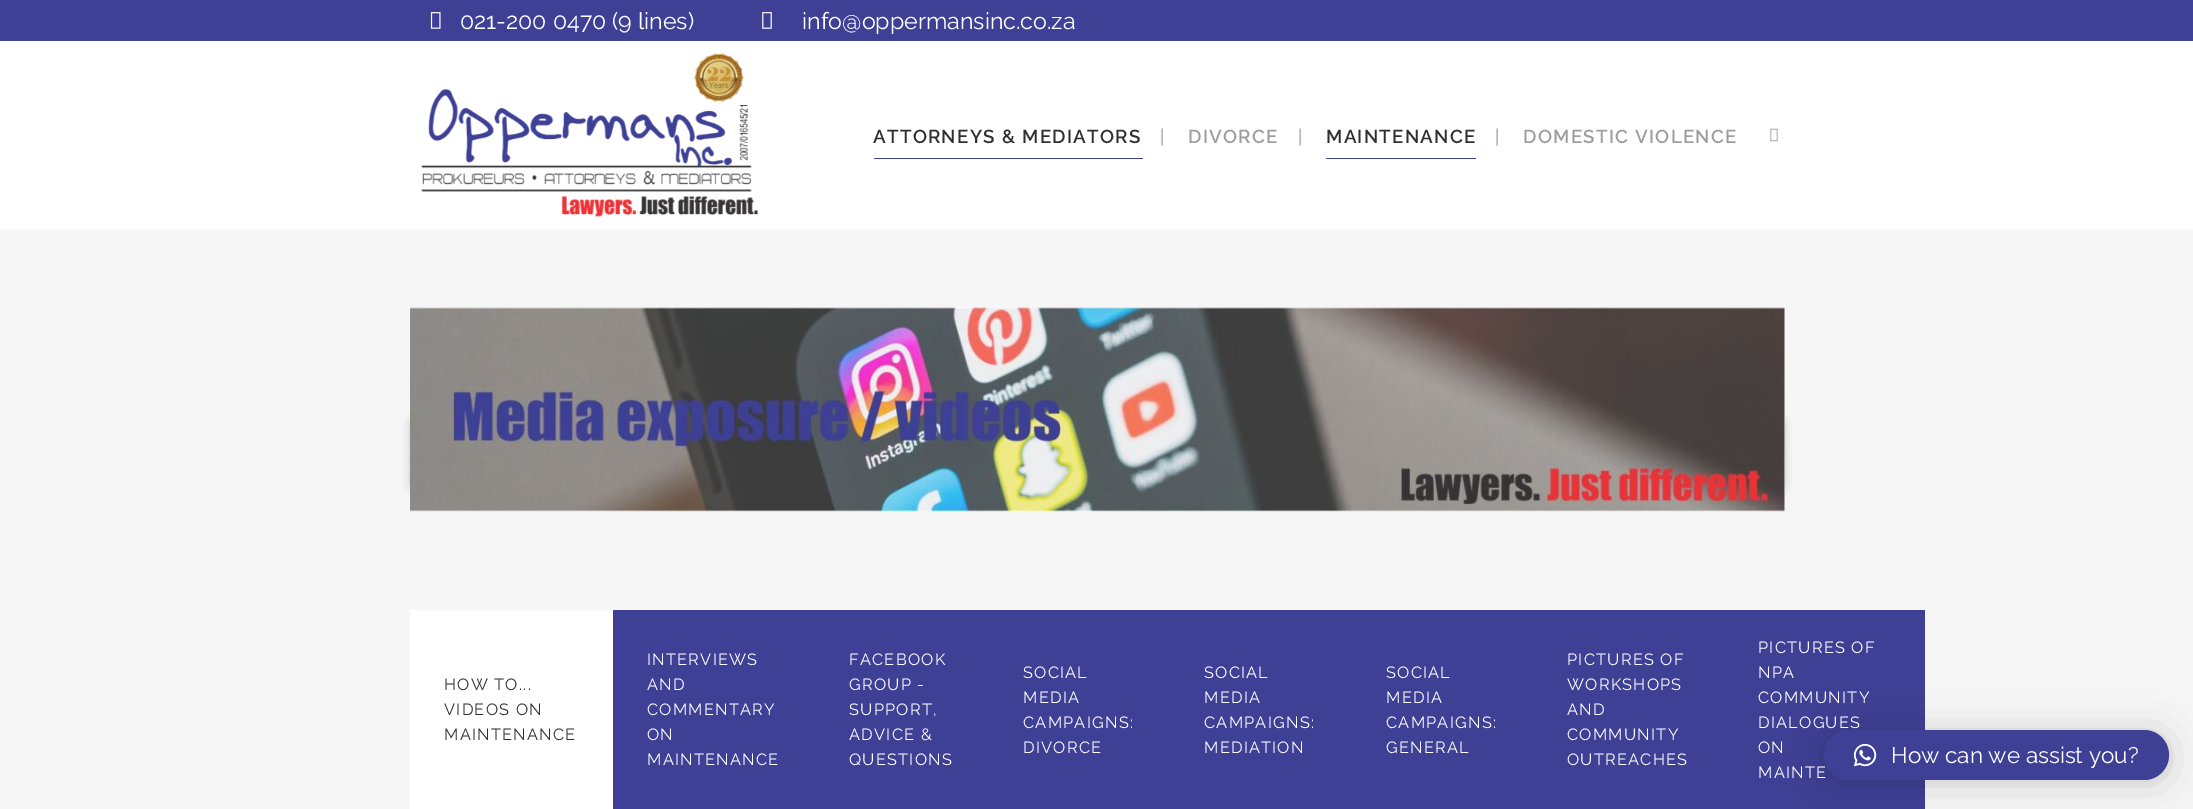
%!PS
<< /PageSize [2193 809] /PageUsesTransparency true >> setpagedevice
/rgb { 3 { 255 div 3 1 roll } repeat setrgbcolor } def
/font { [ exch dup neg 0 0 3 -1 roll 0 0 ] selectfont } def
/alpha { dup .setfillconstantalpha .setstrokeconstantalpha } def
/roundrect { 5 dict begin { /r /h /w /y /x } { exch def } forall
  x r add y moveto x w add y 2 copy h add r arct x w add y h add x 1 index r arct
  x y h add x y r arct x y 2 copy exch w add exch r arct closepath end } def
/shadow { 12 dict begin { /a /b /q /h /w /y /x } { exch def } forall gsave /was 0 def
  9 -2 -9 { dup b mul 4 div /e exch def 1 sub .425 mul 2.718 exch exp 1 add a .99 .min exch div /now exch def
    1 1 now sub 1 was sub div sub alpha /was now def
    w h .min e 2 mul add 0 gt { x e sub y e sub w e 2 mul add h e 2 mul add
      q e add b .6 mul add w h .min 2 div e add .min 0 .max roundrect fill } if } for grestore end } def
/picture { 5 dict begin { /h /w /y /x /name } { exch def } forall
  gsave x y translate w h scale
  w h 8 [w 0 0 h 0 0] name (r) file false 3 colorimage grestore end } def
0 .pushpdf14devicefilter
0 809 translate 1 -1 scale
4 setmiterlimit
246 246 246 rgb
0 0 2193 809 rectfill
62 64 149 rgb
0 0 2193 41 rectfill
(img/1.rgb) 430 12 11 17 picture
(img/2.rgb) 762 12 10 17 picture
255 255 255 rgb
0 41 2193 189 rectfill
(img/3.rgb) 421 53 337 164 picture
62 64 149 rgb
874 158 269 1 rectfill
1326 158 150 1 rectfill
(img/4.rgb) 1770 128 8 14 picture
0 0 0 rgb
416 424 682 61 0 6 0.6 shadow
1098 424 681 61 0 6 0.6 shadow
(img/5.rgb) 410 307 1375 205 picture
255 255 255 rgb
410 610 203 199 rectfill
62 64 149 rgb
613 610 1312 199 rectfill
0 0 0 rgb
1824 733 345 50 25 20 0.16 shadow
1824 731 345 50 25 4 0.06 shadow
/Raleway-Regular 23.25 font
255 255 255 rgb
460 29 moveto (021-200 0470 \(9 lines\)) show
802 29 moveto (info@oppermansinc.co.za) show
/Raleway-SemiBold 18.75 font
48 48 48 rgb
873 143 moveto 1.25 0 (ATTORNEYS & MEDIATORS) ashow
/Raleway-Regular 18.75 font
158 158 158 rgb
1160 143 moveto (|) show
/Raleway-SemiBold 18.75 font
1188 143 moveto 1.25 0 (DIVORCE) ashow
/Raleway-Regular 18.75 font
1298 143 moveto (|) show
/Raleway-SemiBold 18.75 font
48 48 48 rgb
1326 143 moveto 1.25 0 (MAINTENANCE) ashow
/Raleway-Regular 18.75 font
158 158 158 rgb
1495 143 moveto (|) show
/Raleway-SemiBold 18.75 font
1523 143 moveto 1.25 0 (DOMESTIC VIOLENCE) ashow
/Raleway-Regular 16.25 font
48 48 48 rgb
444 690 moveto 1.25 0 (HOW TO...) ashow
444 715 moveto 1.25 0 (VIDEOS ON) ashow
444 740 moveto 1.25 0 (MAINTENANCE) ashow
255 255 255 rgb
647 665 moveto 1.25 0 (INTERVIEWS) ashow
647 690 moveto 1.25 0 (AND) ashow
647 715 moveto 1.25 0 (COMMENTARY) ashow
647 740 moveto 1.25 0 (ON) ashow
647 765 moveto 1.25 0 (MAINTENANCE) ashow
849 665 moveto 1.25 0 (FACEBOOK) ashow
849 690 moveto 1.25 0 (GROUP -) ashow
849 715 moveto 1.25 0 (SUPPORT,) ashow
849 740 moveto 1.25 0 (ADVICE &) ashow
849 765 moveto 1.25 0 (QUESTIONS) ashow
1023 678 moveto 1.25 0 (SOCIAL) ashow
1023 703 moveto 1.25 0 (MEDIA) ashow
1023 728 moveto 1.25 0 (CAMPAIGNS:) ashow
1023 753 moveto 1.25 0 (DIVORCE) ashow
1204 678 moveto 1.25 0 (SOCIAL) ashow
1204 703 moveto 1.25 0 (MEDIA) ashow
1204 728 moveto 1.25 0 (CAMPAIGNS:) ashow
1204 753 moveto 1.25 0 (MEDIATION) ashow
1386 678 moveto 1.25 0 (SOCIAL) ashow
1386 703 moveto 1.25 0 (MEDIA) ashow
1386 728 moveto 1.25 0 (CAMPAIGNS:) ashow
1386 753 moveto 1.25 0 (GENERAL) ashow
1567 665 moveto 1.25 0 (PICTURES OF) ashow
1567 690 moveto 1.25 0 (WORKSHOPS) ashow
1567 715 moveto 1.25 0 (AND) ashow
1567 740 moveto 1.25 0 (COMMUNITY) ashow
1567 765 moveto 1.25 0 (OUTREACHES) ashow
1758 653 moveto 1.25 0 (PICTURES OF) ashow
1758 678 moveto 1.25 0 (NPA) ashow
1758 703 moveto 1.25 0 (COMMUNITY) ashow
1758 728 moveto 1.25 0 (DIALOGUES) ashow
1758 753 moveto 1.25 0 (ON) ashow
1758 778 moveto 1.25 0 (MAINTE) ashow
62 64 149 rgb
1824 730 345 50 25 roundrect fill
(img/6.rgb) 1853 743 24 24 picture
/Raleway-Regular 22.5 font
255 255 255 rgb
1891 763 moveto (How can we assist you?) show
.poppdf14devicefilter showpage
